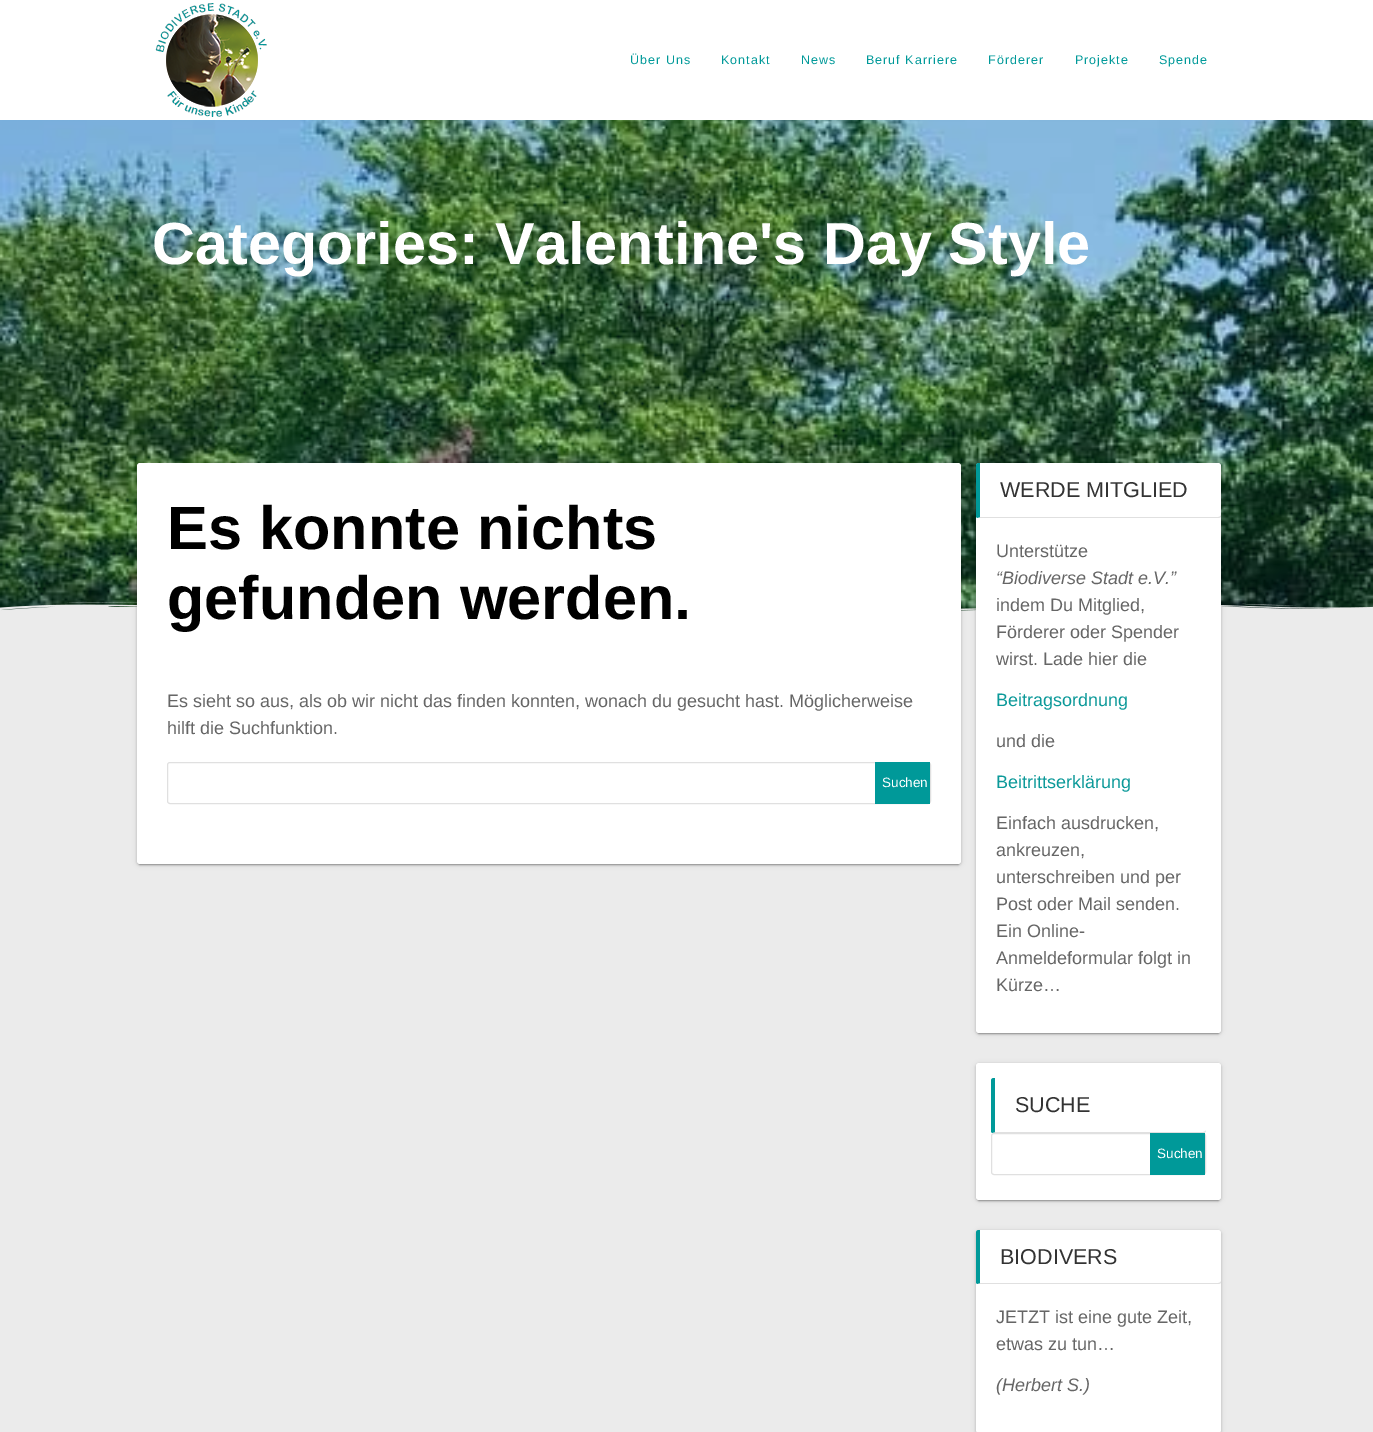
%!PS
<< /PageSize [1373 1432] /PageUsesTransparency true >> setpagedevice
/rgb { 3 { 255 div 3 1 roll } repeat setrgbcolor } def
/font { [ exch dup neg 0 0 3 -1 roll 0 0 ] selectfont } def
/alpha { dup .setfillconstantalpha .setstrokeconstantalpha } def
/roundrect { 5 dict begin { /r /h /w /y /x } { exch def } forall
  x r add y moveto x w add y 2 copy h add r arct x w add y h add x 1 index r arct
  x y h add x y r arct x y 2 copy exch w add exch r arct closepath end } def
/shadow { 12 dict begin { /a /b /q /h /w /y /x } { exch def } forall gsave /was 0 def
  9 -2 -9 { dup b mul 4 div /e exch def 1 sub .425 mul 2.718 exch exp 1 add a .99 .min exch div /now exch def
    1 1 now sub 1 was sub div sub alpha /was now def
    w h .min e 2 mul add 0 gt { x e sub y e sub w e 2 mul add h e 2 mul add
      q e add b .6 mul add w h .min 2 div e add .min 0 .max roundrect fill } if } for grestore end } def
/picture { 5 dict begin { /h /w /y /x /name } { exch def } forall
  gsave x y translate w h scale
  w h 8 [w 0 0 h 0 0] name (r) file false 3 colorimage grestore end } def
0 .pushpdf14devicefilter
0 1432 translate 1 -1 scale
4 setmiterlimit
255 255 255 rgb
0 0 1373 1432 rectfill
(img/1.rgb) 155 3 112 114 picture
(img/2.rgb) 0 120 1373 491 picture
(img/3.rgb) 0 601 1373 12 picture
235 235 235 rgb
0 613 1373 819 rectfill
0 0 0 rgb
137 464 824 401 3 2.5 0.12 shadow
139 468 820 397 1 0.5 0.2 shadow
137 464 824 401 3 1 0.14 shadow
255 255 255 rgb
137 463 824 401 3 roundrect fill
224 224 224 rgb
167.5 762.5 763 41 2.5 roundrect stroke
0 153 153 rgb
875 762 55 42 rectfill
0 0 0 rgb
976 464 245 570 3 2.5 0.12 shadow
978 468 241 566 1 0.5 0.2 shadow
976 464 245 570 3 1 0.14 shadow
255 255 255 rgb
976 463 245 570 3 roundrect fill
224 224 224 rgb
979 518 moveto 1219 518 lineto 1221 517 lineto 1221 515 lineto 1221 516 1220 517 1218 517 curveto 980 517 lineto 977 518 lineto closepath fill
0 153 153 rgb
979 463 moveto 980 463 lineto 980 517 lineto 977 518 lineto 976 517 976 516 976 515 curveto 976 466 lineto 976 464 977 463 979 463 curveto closepath fill
0 0 0 rgb
976 1064 245 137 3 2.5 0.12 shadow
978 1068 241 133 1 0.5 0.2 shadow
976 1064 245 137 3 1 0.14 shadow
255 255 255 rgb
976 1063 245 137 3 roundrect fill
224 224 224 rgb
994 1133 moveto 1203 1133 lineto 1205 1133 1206 1132 1206 1130 curveto 1206 1131 1205 1132 1203 1132 curveto 995 1132 lineto 992 1133 lineto closepath fill
0 153 153 rgb
994 1078 moveto 995 1078 lineto 995 1132 lineto 992 1133 lineto 991 1132 991 1131 991 1130 curveto 991 1081 lineto 991 1079 992 1078 994 1078 curveto closepath fill
224 224 224 rgb
991.5 1133.5 214 41 2.5 roundrect stroke
0 153 153 rgb
1150 1133 55 42 rectfill
0 0 0 rgb
976 1231 245 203 3 2.5 0.12 shadow
976 1231 245 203 3 1 0.14 shadow
255 255 255 rgb
976 1230 245 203 3 roundrect fill
224 224 224 rgb
979 1284 moveto 1219 1284 lineto 1221 1283 lineto 1221 1281 lineto 1221 1282 1220 1283 1218 1283 curveto 980 1283 lineto 977 1284 lineto closepath fill
0 153 153 rgb
979 1230 moveto 980 1230 lineto 980 1283 lineto 977 1284 lineto 976 1283 976 1282 976 1281 curveto 976 1233 lineto 976 1231 977 1230 979 1230 curveto closepath fill
/LiberationSans-Regular 12.5 font
630 64 moveto 1 0 (Über Uns) ashow
721 64 moveto 1 0 (Kontakt) ashow
801 64 moveto 1 0 (News) ashow
866 64 moveto 1 0 (Beruf Karriere) ashow
988 64 moveto 1 0 (Förderer) ashow
1075 64 moveto 1 0 (Projekte) ashow
1159 64 moveto 1 0 (Spende) ashow
/LiberationSans-Bold 59.4 font
255 255 255 rgb
152 264 moveto (Categories: Valentine's Day Style) show
/LiberationSans-Bold 61.25 font
0 0 0 rgb
167 549 moveto (Es konnte nichts) show
167 619 moveto (gefunden werden.) show
/LiberationSans-Regular 18 font
102 102 102 rgb
167 707 moveto (Es sieht so aus, als ob wir nicht das finden konnten, wonach du gesucht hast. Möglicherweise) show
167 734 moveto (hilft die Suchfunktion.) show
/LiberationSans-Regular 13.5 font
255 255 255 rgb
882 787 moveto (Suchen) show
/LiberationSans-Regular 21.5 font
51 51 51 rgb
1000 497 moveto (WERDE MITGLIED) show
/LiberationSans-Regular 18 font
102 102 102 rgb
996 557 moveto (Unterstütze) show
/LiberationSans-Italic 18 font
996 584 moveto (“Biodiverse Stadt e.V.”) show
/LiberationSans-Regular 18 font
[
  [(indem Du Mitglied,) 996 611]
  [(Förderer oder Spender) 996 638]
  [(wirst. Lade hier die) 996 665]
] { aload pop moveto show } forall
12 153 153 rgb
996 706 moveto (Beitragsordnung) show
102 102 102 rgb
996 747 moveto (und die) show
12 153 153 rgb
996 788 moveto (Beitrittserklärung) show
102 102 102 rgb
[
  [(Einfach ausdrucken,) 996 829]
  [(ankreuzen,) 996 856]
  [(unterschreiben und per) 996 883]
  [(Post oder Mail senden.) 996 910]
  [(Ein Online-) 996 937]
  [(Anmeldeformular folgt in) 996 964]
  [(Kürze…) 996 991]
] { aload pop moveto show } forall
/LiberationSans-Regular 21.5 font
51 51 51 rgb
1015 1112 moveto (SUCHE) show
/LiberationSans-Regular 13.5 font
255 255 255 rgb
1157 1158 moveto (Suchen) show
/LiberationSans-Regular 21.5 font
51 51 51 rgb
1000 1264 moveto (BIODIVERS) show
/LiberationSans-Regular 18 font
102 102 102 rgb
996 1323 moveto (JETZT ist eine gute Zeit,) show
996 1350 moveto (etwas zu tun…) show
/LiberationSans-Italic 18 font
996 1391 moveto (\(Herbert S.\)) show
.poppdf14devicefilter showpage
